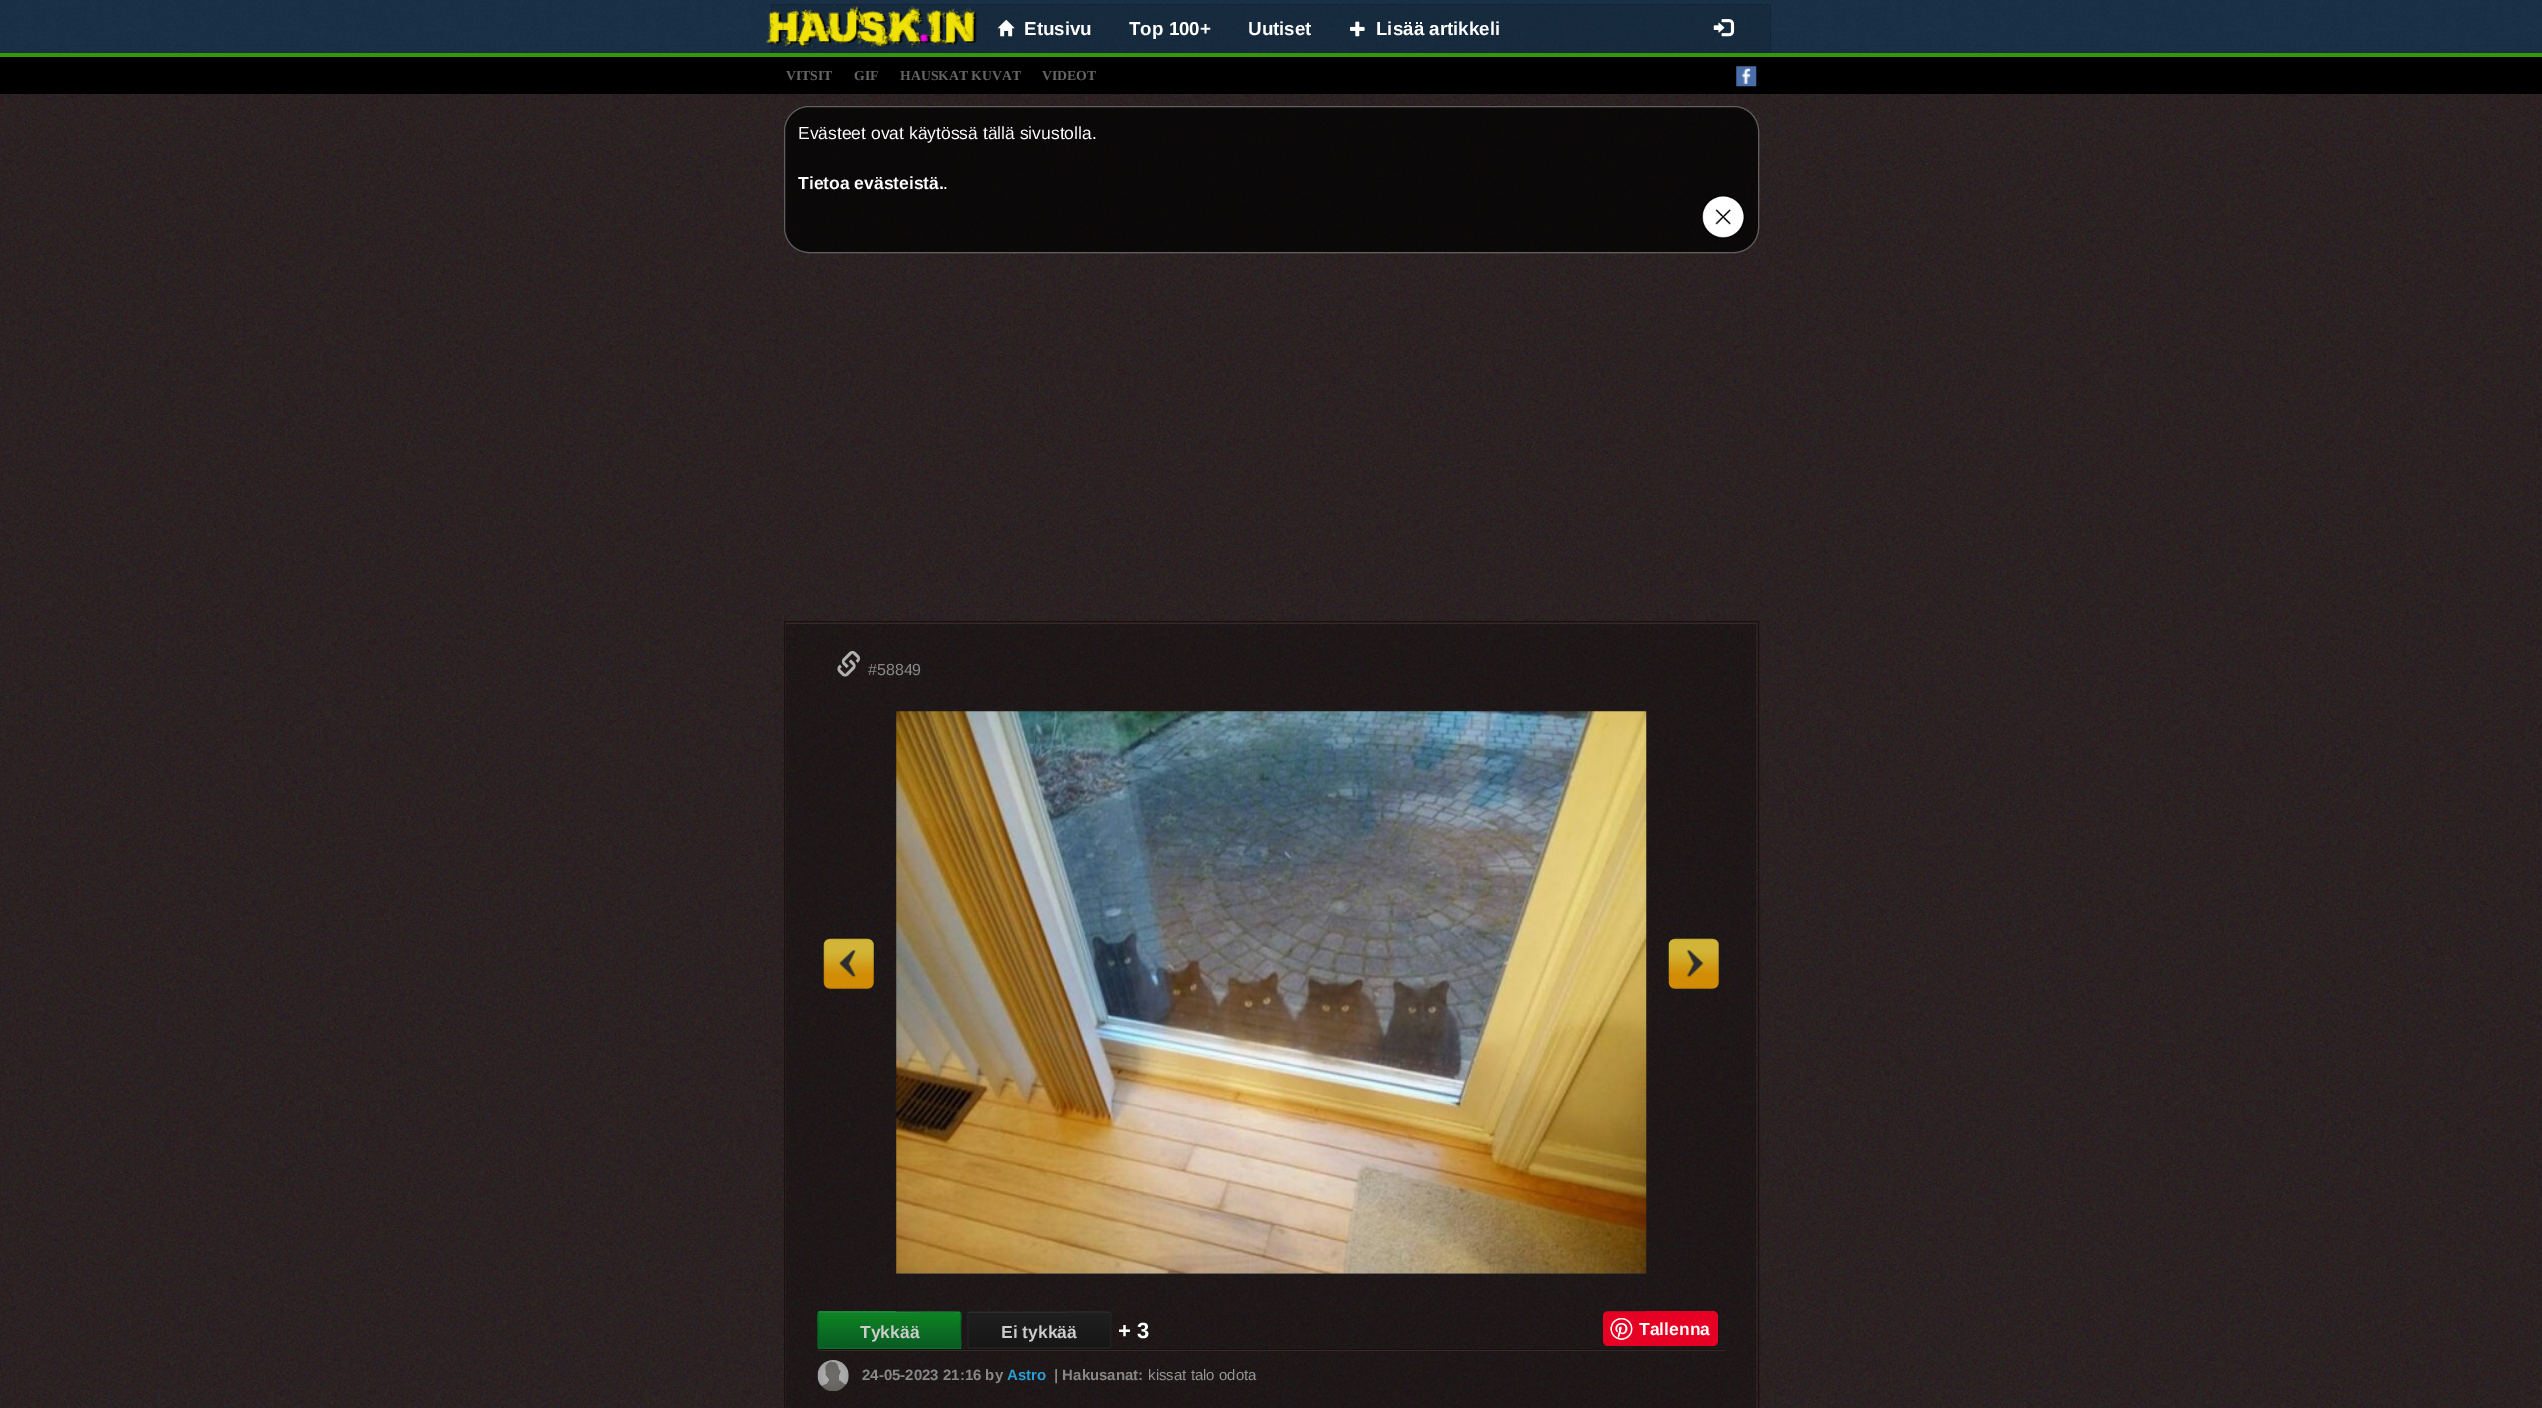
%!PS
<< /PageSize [2542 1408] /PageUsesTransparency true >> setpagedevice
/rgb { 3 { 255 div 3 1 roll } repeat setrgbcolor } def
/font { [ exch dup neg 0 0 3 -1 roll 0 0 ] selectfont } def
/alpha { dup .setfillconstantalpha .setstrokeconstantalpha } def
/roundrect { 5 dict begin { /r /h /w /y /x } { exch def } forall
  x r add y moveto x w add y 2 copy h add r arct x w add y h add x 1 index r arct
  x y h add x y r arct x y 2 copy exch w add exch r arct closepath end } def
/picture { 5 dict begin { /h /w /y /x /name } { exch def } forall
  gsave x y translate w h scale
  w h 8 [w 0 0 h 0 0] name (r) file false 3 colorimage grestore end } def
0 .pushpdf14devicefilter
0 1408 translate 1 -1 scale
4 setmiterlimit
255 255 255 rgb
0 0 2542 1408 rectfill
(img/1.rgb) 0 94 2542 1314 picture
(img/2.rgb) 0 0 2542 53 picture
54 152 1 rgb
0 53 2542 4 rectfill
0.1 alpha
0 0 0 rgb
771 4 1000 49 rectfill
0.15 alpha
771 4 moveto 1771 4 lineto 1770 5 lineto 772 5 lineto closepath fill
1771 4 moveto 1771 52 lineto 1770 52 lineto 1770 5 lineto closepath fill
771 52 moveto 771 4 lineto 772 5 lineto 772 52 lineto closepath fill
1 alpha
(img/3.rgb) 766 5 212 45 picture
(img/4.rgb) 997 19 18 18 picture
(img/5.rgb) 1350 21 15 16 picture
(img/6.rgb) 1713 19 22 18 picture
0 57 2542 37 rectfill
(img/7.rgb) 1736 66 21 21 picture
0.75 alpha
784 106 975 147 25 roundrect fill
0.35 alpha
255 255 255 rgb
784.5 106.5 974 146 24.5 roundrect stroke
1 alpha
(img/8.rgb) 1701 195 44 44 picture
27 16 16 rgb
784.5 621.5 974 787 rectstroke
0.3 alpha
0 0 0 rgb
786 624 970 784 rectfill
1 alpha
53 41 41 rgb
786 623 970 1 rectfill
(img/9.rgb) 837 651 24 26 picture
(img/10.rgb) 823 938 51 51 picture
(img/11.rgb) 1668 938 51 51 picture
gsave
818 1311 143 38 2.5 roundrect clip newpath
gsave 818 1311 moveto 961 1311 lineto 961 1313 lineto 818 1313 lineto closepath clip newpath
<< /ShadingType 2 /ColorSpace /DeviceRGB /Coords [889 1278 889 1313] /Extend [true true] /Function << /FunctionType 2 /Domain [0 1] /C0 [0.055 0.518 0.133] /C1 [0.035 0.357 0.141] /N 1 >> >> shfill grestore
grestore
gsave 818 1313 moveto 961 1313 lineto 961 1348 lineto 818 1348 lineto closepath clip newpath
<< /ShadingType 2 /ColorSpace /DeviceRGB /Coords [889 1313 889 1348] /Extend [true true] /Function << /FunctionType 2 /Domain [0 1] /C0 [0.055 0.518 0.133] /C1 [0.035 0.357 0.141] /N 1 >> >> shfill grestore
36 147 64 rgb
1.2 setlinewidth
818.5 1312.5 moveto 820 1312 lineto 912.5 1312 lineto 915.5 1312 959 1311 960 1312.5 curveto stroke
gsave
968 1311 143 38 2.5 roundrect clip newpath
gsave 968 1311 moveto 1111 1311 lineto 1111 1313 lineto 968 1313 lineto closepath clip newpath
<< /ShadingType 2 /ColorSpace /DeviceRGB /Coords [1039 1278 1039 1313] /Extend [true true] /Function << /FunctionType 2 /Domain [0 1] /C0 [0.122 0.122 0.122] /C1 [0.086 0.086 0.086] /N 1 >> >> shfill grestore
grestore
gsave 968 1313 moveto 1111 1313 lineto 1111 1348 lineto 968 1348 lineto closepath clip newpath
<< /ShadingType 2 /ColorSpace /DeviceRGB /Coords [1039 1313 1039 1348] /Extend [true true] /Function << /FunctionType 2 /Domain [0 1] /C0 [0.122 0.122 0.122] /C1 [0.086 0.086 0.086] /N 1 >> >> shfill grestore
52 52 52 rgb
968.5 1312.5 moveto 970 1312 lineto 1062.5 1312 lineto 1065.5 1312 1109 1311 1110 1312.5 curveto stroke
(img/12.rgb) 896 711 751 601 picture
230 0 35 rgb
1603 1311 115 35 5 roundrect fill
(img/13.rgb) 896 1273 751 39 picture
0.3 alpha
0 0 0 rgb
896 1274 750 37 rectfill
1 alpha
27 16 16 rgb
818 1349 907 1 rectfill
gsave
818 1311 143 38 2.5 roundrect clip newpath
gsave 818 1348 moveto 961 1348 lineto 961 1349 lineto 818 1349 lineto closepath clip newpath
<< /ShadingType 2 /ColorSpace /DeviceRGB /Coords [889 1348 889 1383] /Extend [true true] /Function << /FunctionType 2 /Domain [0 1] /C0 [0.055 0.518 0.133] /C1 [0.035 0.357 0.141] /N 1 >> >> shfill grestore
grestore
6 101 38 rgb
960 1312.5 moveto 962 1314 960.5 1322.5 960.5 1324.5 curveto 960.5 1341 lineto 960.5 1341.5 962 1348 959 1348 curveto 820 1348 lineto 817 1348 818 1341.5 818 1341 curveto 818 1324.5 lineto 818 1322.5 817 1314 818.5 1312.5 curveto stroke
gsave
968 1311 143 38 2.5 roundrect clip newpath
gsave 968 1348 moveto 1111 1348 lineto 1111 1349 lineto 968 1349 lineto closepath clip newpath
<< /ShadingType 2 /ColorSpace /DeviceRGB /Coords [1039 1348 1039 1383] /Extend [true true] /Function << /FunctionType 2 /Domain [0 1] /C0 [0.122 0.122 0.122] /C1 [0.086 0.086 0.086] /N 1 >> >> shfill grestore
grestore
34 34 34 rgb
1110 1312.5 moveto 1112 1314 1110.5 1322.5 1110.5 1324.5 curveto 1110.5 1341 lineto 1110.5 1341.5 1112 1348 1109 1348 curveto 970 1348 lineto 967 1348 968 1341.5 968 1341 curveto 968 1324.5 lineto 968 1322.5 967 1314 968.5 1312.5 curveto stroke
(img/14.rgb) 1610 1318 23 22 picture
53 41 41 rgb
818 1350 907 1 rectfill
(img/15.rgb) 817 1360 32 31 picture
/LiberationSans-Bold 18.75 font
255 255 255 rgb
[
  [(Etusivu) 1024 35]
  [(Top 100+) 1129 35]
  [(Uutiset) 1248 35]
  [(Lisää artikkeli) 1376 35]
] { aload pop moveto show } forall
/LiberationSerif-Bold 13.75 font
101 101 101 rgb
[
  [(VITSIT) 786 80]
  [(GIF) 854 80]
  [(HAUSKAT KUVAT) 900 80]
  [(VIDEOT) 1042 80]
] { aload pop moveto show } forall
/LiberationSans-Regular 17.5 font
255 255 255 rgb
798 139 moveto (Evästeet ovat käytössä tällä sivustolla.) show
/LiberationSans-Bold 17.5 font
798 189 moveto (Tietoa evästeistä.) show
/LiberationSans-Regular 17.5 font
943 189 moveto (.) show
/LiberationSans-Regular 16 font
136 136 136 rgb
868 675 moveto (#58849) show
/LiberationSans-Bold 17.5 font
204 204 204 rgb
860 1338 moveto (Tykkää) show
1001 1338 moveto (Ei tykkää) show
/LiberationSans-Bold 22 font
255 255 255 rgb
1118 1338 moveto (+ 3) show
/LiberationSans-Bold 17.5 font
1639 1335 moveto (Tallenna) show
/LiberationSans-Bold 15 font
136 136 136 rgb
862 1380 moveto (24-05-2023 21:16 by) show
42 159 214 rgb
1007 1380 moveto (Astro) show
136 136 136 rgb
1054 1380 moveto (| Hakusanat:) show
/LiberationSans-Regular 15 font
149 149 149 rgb
1148 1380 moveto (kissat talo odota) show
.poppdf14devicefilter showpage
